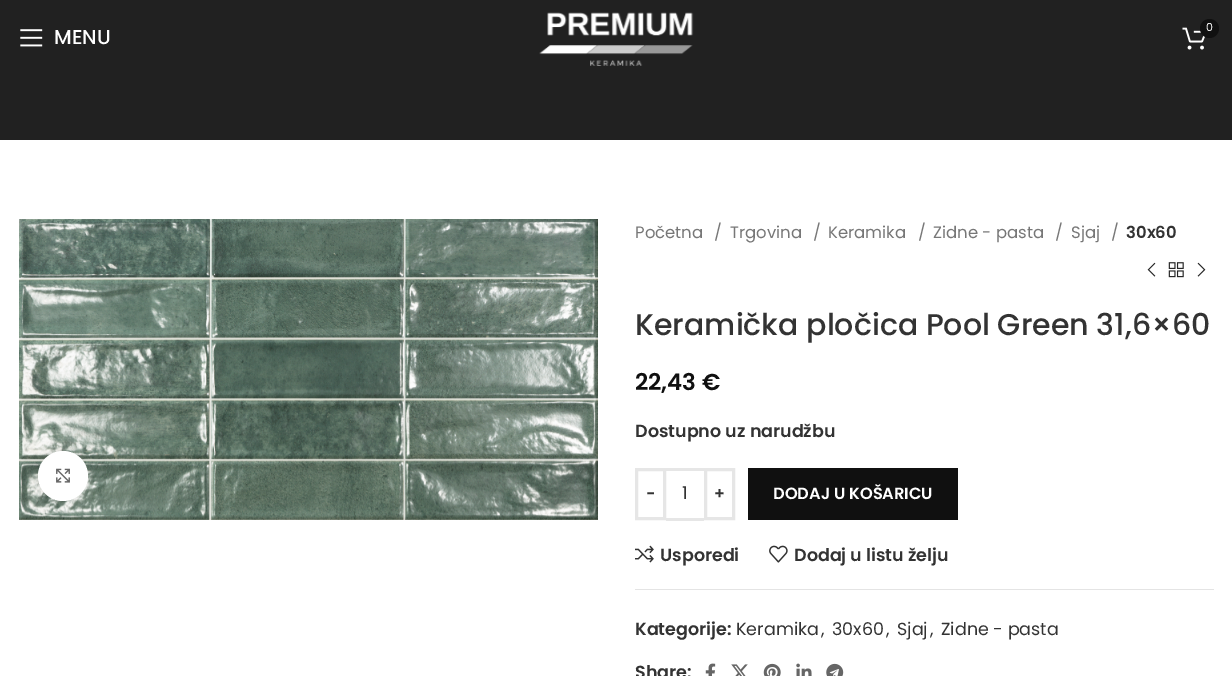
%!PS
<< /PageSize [1232 676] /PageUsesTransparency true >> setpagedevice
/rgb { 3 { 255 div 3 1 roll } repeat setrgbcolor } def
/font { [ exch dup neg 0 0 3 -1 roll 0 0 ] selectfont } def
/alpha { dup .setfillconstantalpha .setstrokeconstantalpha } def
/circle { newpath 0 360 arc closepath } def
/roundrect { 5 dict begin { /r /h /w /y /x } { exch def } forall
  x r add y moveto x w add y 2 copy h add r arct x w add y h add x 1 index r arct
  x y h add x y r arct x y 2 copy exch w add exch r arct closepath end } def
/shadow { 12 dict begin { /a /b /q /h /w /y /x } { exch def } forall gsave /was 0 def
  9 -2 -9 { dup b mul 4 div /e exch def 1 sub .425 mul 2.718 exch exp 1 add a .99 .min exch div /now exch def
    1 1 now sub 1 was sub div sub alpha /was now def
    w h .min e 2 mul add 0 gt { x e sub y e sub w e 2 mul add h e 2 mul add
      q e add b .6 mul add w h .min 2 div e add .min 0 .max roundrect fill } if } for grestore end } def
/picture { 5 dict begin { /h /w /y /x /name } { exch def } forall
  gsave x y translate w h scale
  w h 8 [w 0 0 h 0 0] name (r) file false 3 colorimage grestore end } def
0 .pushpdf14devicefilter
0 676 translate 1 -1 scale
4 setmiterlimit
255 255 255 rgb
0 0 1232 676 rectfill
33 33 33 rgb
0 0 1232 140 rectfill
(img/1.rgb) 539 12 155 54 picture
(img/2.rgb) 1182 27 24 23 picture
16 16 16 rgb
1209.5 28.5 9.5 circle fill
(img/3.rgb) 20 29 23 18 picture
(img/4.rgb) 19 219 579 301 picture
0 0 0 rgb
38 451 50 50 25 3 0.08 shadow
255 255 255 rgb
63 476 25 circle fill
(img/5.rgb) 56 468 14 15 picture
(img/6.rgb) 1147 262 9 15 picture
(img/7.rgb) 1168 262 16 16 picture
(img/8.rgb) 1197 262 9 15 picture
230 230 230 rgb
3 setlinewidth
636.5 469.5 28 49 rectstroke
666 468 38 3 rectfill
666 518 38 3 rectfill
705.5 469.5 28 49 rectstroke
16 16 16 rgb
748 468 210 52 rectfill
(img/9.rgb) 635 545 19 18 picture
(img/10.rgb) 769 545 19 18 picture
228 228 228 rgb
635 589 579 1 rectfill
(img/11.rgb) 705 663 11 13 picture
(img/12.rgb) 731 664 17 12 picture
(img/13.rgb) 763 663 18 13 picture
(img/14.rgb) 796 663 16 13 picture
(img/15.rgb) 826 663 18 13 picture
/Poppins-Regular 11 font
255 255 255 rgb
1206 31 moveto (0) show
/Poppins-Medium 20 font
54 44 moveto (MENU) show
/Poppins-Regular 16.5 font
119 119 119 rgb
[
  [(Početna) 635 238]
  [(/) 714 238]
  [(Trgovina) 730 238]
  [(/) 813 238]
  [(Keramika) 828 238]
  [(/) 918 238]
  [(Zidne - pasta) 933 238]
  [(/) 1055 238]
  [(Sjaj) 1071 238]
  [(/) 1111 238]
] { aload pop moveto show } forall
/Poppins-SemiBold 16.5 font
51 51 51 rgb
1126 238 moveto (30x60) show
/Poppins-Medium 30 font
635 335 moveto (Keramička pločica Pool Green 31,6×60) show
/Poppins-SemiBold 23 font
16 16 16 rgb
635 390 moveto (22,43 €) show
/Poppins-SemiBold 17.5 font
51 51 51 rgb
635 437 moveto (Dostupno uz narudžbu) show
/Poppins-SemiBold 16.25 font
646 499 moveto (-) show
/Poppins-Regular 17.5 font
682 499 moveto (1) show
/Poppins-SemiBold 16.25 font
714 499 moveto (+) show
255 255 255 rgb
773 499 moveto (DODAJ U KOŠARICU) show
/Poppins-SemiBold 17.5 font
51 51 51 rgb
[
  [(Usporedi) 660 561]
  [(Dodaj u listu želju) 794 561]
  [(Kategorije:) 635 635]
] { aload pop moveto show } forall
/Poppins-Regular 17.5 font
[
  [(Keramika) 736 635]
  [(,) 821 635]
  [(30x60) 832 635]
  [(,) 886 635]
  [(Sjaj) 897 635]
  [(,) 930 635]
  [(Zidne - pasta) 941 635]
] { aload pop moveto show } forall
/Poppins-SemiBold 17.5 font
635 678 moveto (Share:) show
.poppdf14devicefilter showpage
